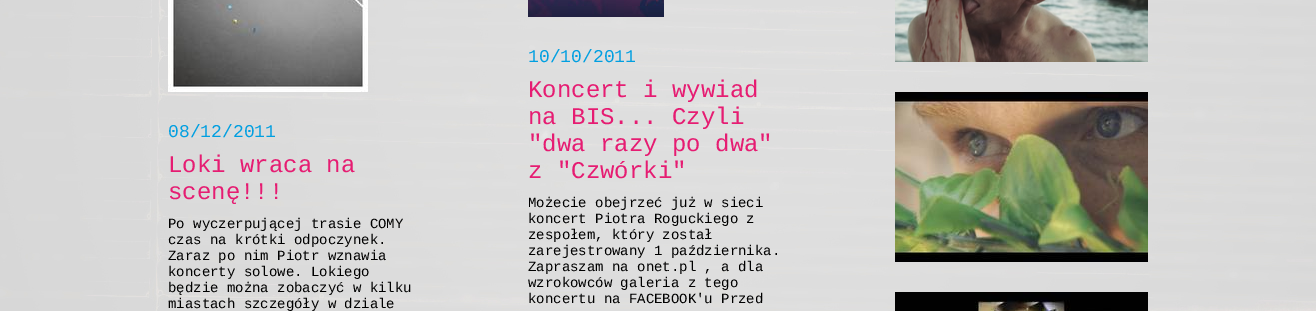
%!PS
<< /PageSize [1316 311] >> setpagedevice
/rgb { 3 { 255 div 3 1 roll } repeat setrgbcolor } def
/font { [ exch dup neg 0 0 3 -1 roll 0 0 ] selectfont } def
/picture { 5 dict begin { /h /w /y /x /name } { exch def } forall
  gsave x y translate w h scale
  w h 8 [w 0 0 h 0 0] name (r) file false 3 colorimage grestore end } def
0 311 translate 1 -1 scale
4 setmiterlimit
255 255 255 rgb
0 0 1316 311 rectfill
(img/1.rgb) 0 0 1316 311 picture
(img/2.rgb) 168 0 200 92 picture
(img/3.rgb) 528 0 136 17 picture
(img/4.rgb) 895 0 253 62 picture
(img/5.rgb) 895 92 253 170 picture
(img/6.rgb) 895 292 253 19 picture
/LiberationMono-Regular 18 font
0 159 225 rgb
168 137 moveto (08/12/2011) show
/LiberationMono-Regular 24 font
230 28 114 rgb
168 172 moveto (Loki wraca na) show
168 199 moveto (scenę!!!) show
/LiberationMono-Regular 14 font
0 0 0 rgb
[
  [(Po wyczerpującej trasie COMY) 168 228]
  [(czas na krótki odpoczynek.) 168 244]
  [(Zaraz po nim Piotr wznawia) 168 260]
  [(koncerty solowe. Lokiego) 168 276]
  [(będzie można zobaczyć w kilku) 168 292]
  [(miastach szczegóły w dziale) 168 308]
] { aload pop moveto show } forall
/LiberationMono-Regular 18 font
0 159 225 rgb
528 62 moveto (10/10/2011) show
/LiberationMono-Regular 24 font
230 28 114 rgb
[
  [(Koncert i wywiad) 528 97]
  [(na BIS... Czyli) 528 124]
  [("dwa razy po dwa") 528 151]
  [(z "Czwórki") 528 178]
] { aload pop moveto show } forall
/LiberationMono-Regular 14 font
0 0 0 rgb
[
  [(Możecie obejrzeć już w sieci) 528 207]
  [(koncert Piotra Roguckiego z) 528 223]
  [(zespołem, który został) 528 239]
  [(zarejestrowany 1 października.) 528 255]
  [(Zapraszam na onet.pl , a dla) 528 271]
  [(wzrokowców galeria z tego) 528 287]
  [(koncertu na FACEBOOK'u Przed) 528 303]
] { aload pop moveto show } forall
showpage
